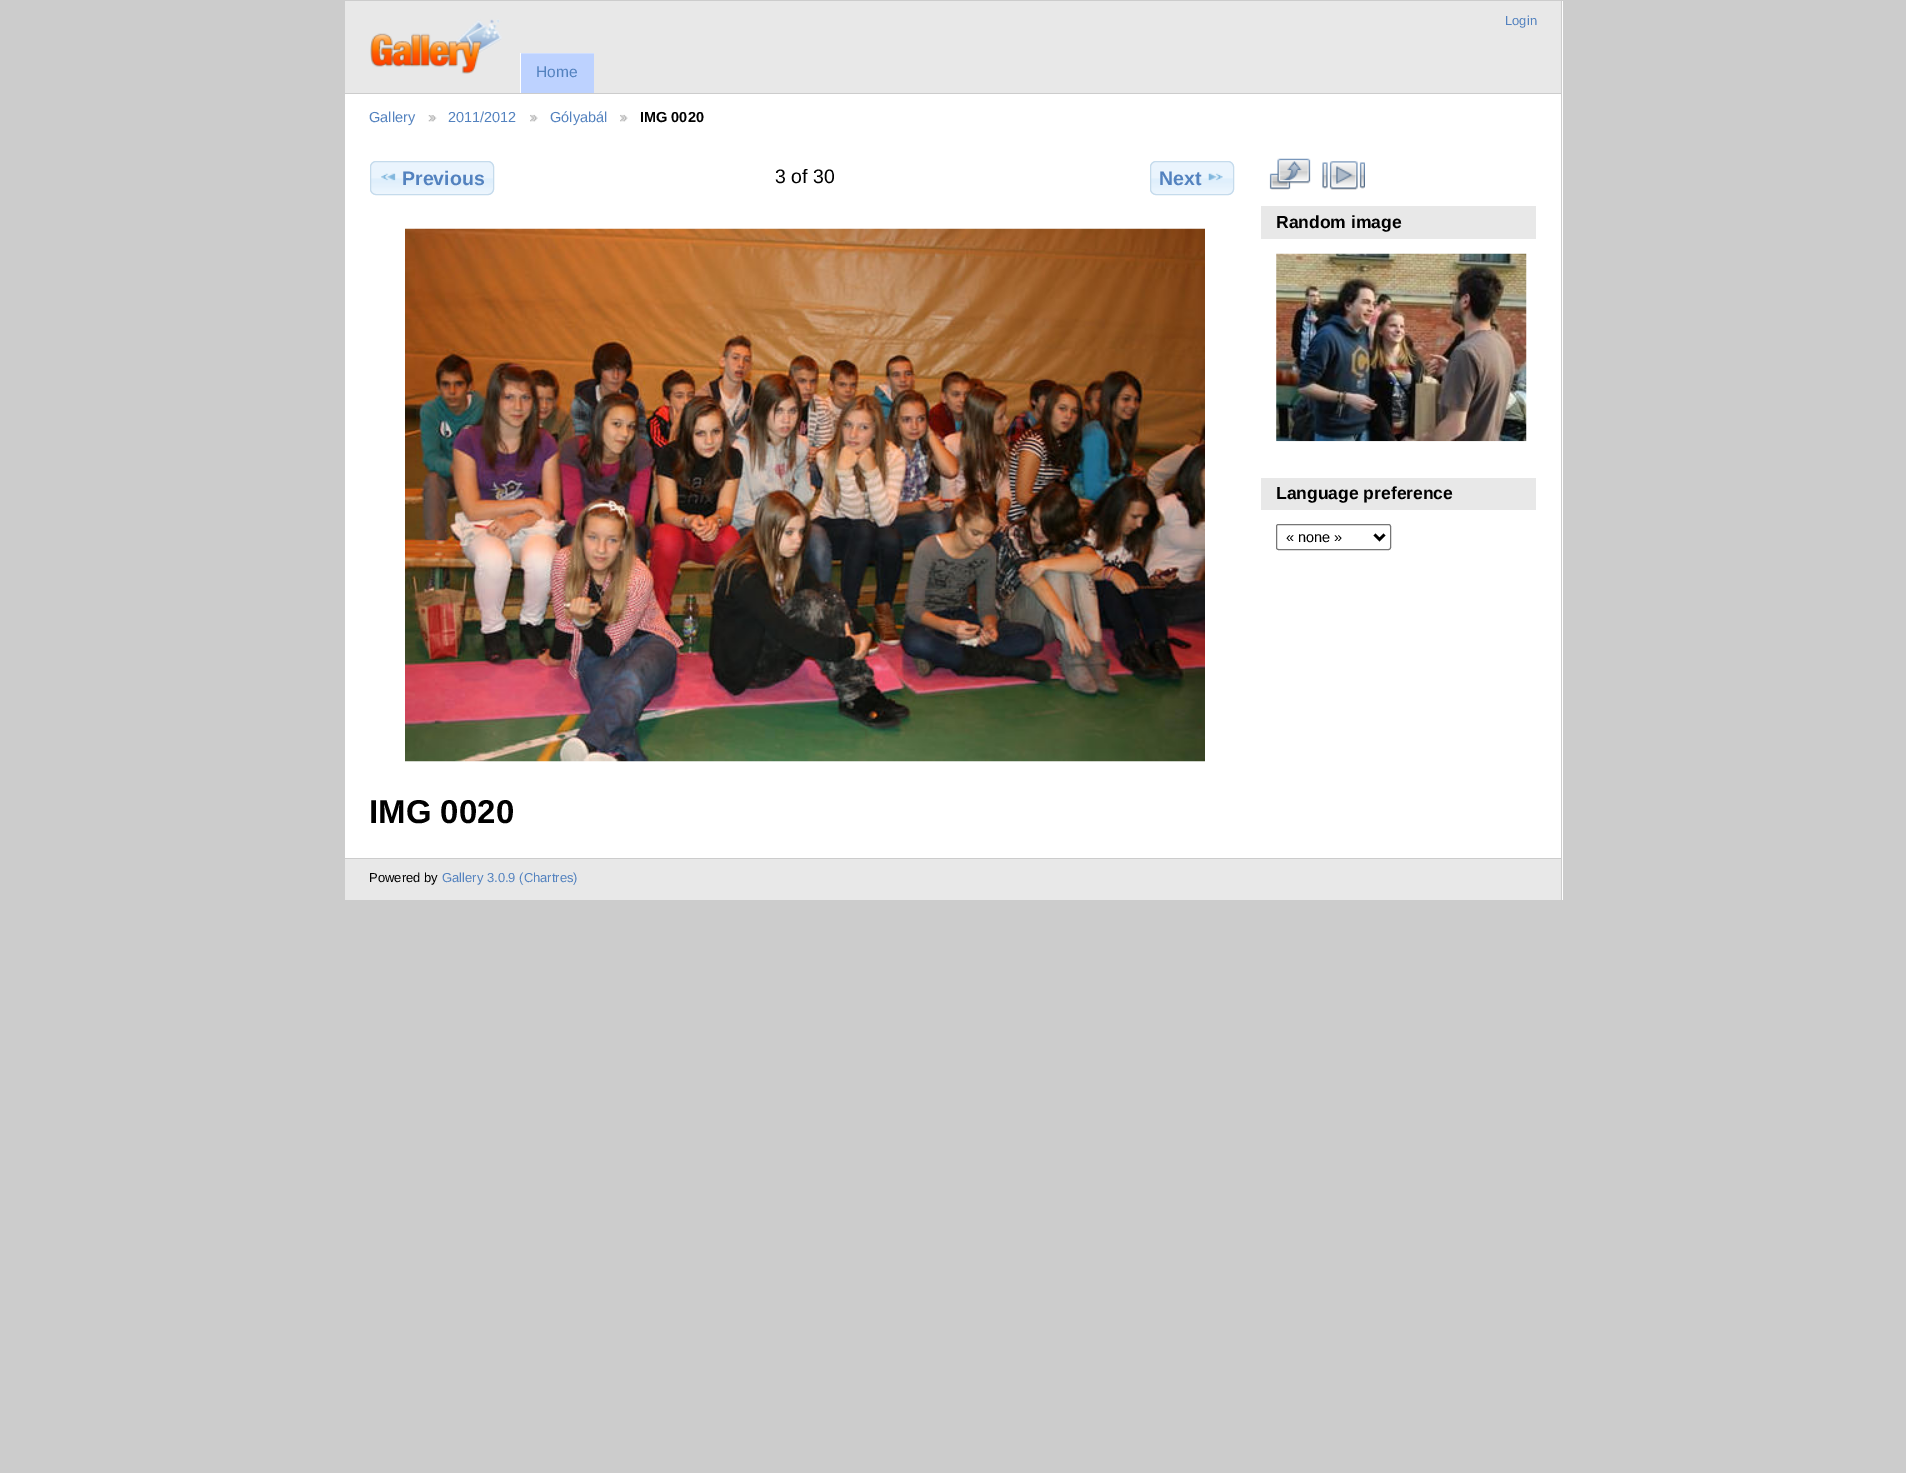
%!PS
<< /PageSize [1906 1473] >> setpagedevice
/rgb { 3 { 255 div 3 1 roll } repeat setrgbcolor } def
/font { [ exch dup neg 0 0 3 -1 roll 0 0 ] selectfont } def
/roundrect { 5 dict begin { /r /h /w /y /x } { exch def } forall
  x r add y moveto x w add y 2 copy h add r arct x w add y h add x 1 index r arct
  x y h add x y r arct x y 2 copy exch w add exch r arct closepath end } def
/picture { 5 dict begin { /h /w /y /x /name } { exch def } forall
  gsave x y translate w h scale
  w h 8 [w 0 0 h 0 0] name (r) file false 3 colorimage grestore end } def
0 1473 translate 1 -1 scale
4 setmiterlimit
204 204 204 rgb
0 0 1906 1473 rectfill
[
  [345 1 1218 899 255 255 255]
  [1561 0 1 900 204 204 204]
  [345 1 1216 92 232 232 232]
  [345 93 1216 1 204 204 204]
] { aload pop rgb rectfill } forall
(img/1.rgb) 370 19 132 55 picture
[
  [521 54 73 39 189 210 255]
  [520 53 74 1 207 222 255]
  [520 53 1 40 255 255 255]
] { aload pop rgb rectfill } forall
(img/2.rgb) 428 115 9 7 picture
(img/3.rgb) 530 114 8 8 picture
(img/4.rgb) 620 114 8 8 picture
(img/5.rgb) 370 161 124 34 picture
197 219 236 rgb
370.5 161.5 123 33 5.5 roundrect stroke
(img/6.rgb) 381 173 15 8 picture
(img/7.rgb) 1150 161 84 34 picture
1150.5 161.5 83 33 5.5 roundrect stroke
(img/8.rgb) 1208 173 15 8 picture
(img/9.rgb) 405 228 800 534 picture
(img/10.rgb) 1269 158 42 32 picture
(img/11.rgb) 1322 161 43 29 picture
232 232 232 rgb
1261 206 275 33 rectfill
(img/12.rgb) 1276 253 251 189 picture
1261 478 275 32 rectfill
118 118 118 rgb
1276.5 524.5 114 25 2 roundrect stroke
0 0 0 rgb
2.5 setlinewidth
1374.5 534.5 moveto 1379.5 539.5 lineto 1384.5 534.5 lineto stroke
232 232 232 rgb
345 859 1216 41 rectfill
204 204 204 rgb
345 858 1216 1 rectfill
/LiberationSans-Regular 15.5 font
83 130 191 rgb
536 77 moveto (Home) show
/LiberationSans-Regular 13 font
1505 25 moveto (Login) show
/LiberationSans-Regular 14.5 font
[
  [(Gallery) 369 122]
  [(2011/2012) 448 122]
  [(Gólyabál) 550 122]
] { aload pop moveto show } forall
/LiberationSans-Bold 14.5 font
0 0 0 rgb
640 122 moveto (IMG 0020) show
/LiberationSans-Bold 19.5 font
83 130 191 rgb
402 185 moveto (Previous) show
/LiberationSans-Regular 19.5 font
0 0 0 rgb
775 183 moveto (3 of 30) show
/LiberationSans-Bold 19.5 font
83 130 191 rgb
1159 185 moveto (Next) show
/LiberationSans-Bold 33 font
0 0 0 rgb
369 823 moveto (IMG 0020) show
/LiberationSans-Bold 17.5 font
1276 228 moveto (Random image) show
1276 499 moveto (Language preference) show
/LiberationSans-Regular 14.5 font
1286 542 moveto (« none ») show
/LiberationSans-Regular 13 font
369 882 moveto (Powered by) show
83 130 191 rgb
442 882 moveto (Gallery 3.0.9 \(Chartres\)) show
showpage
